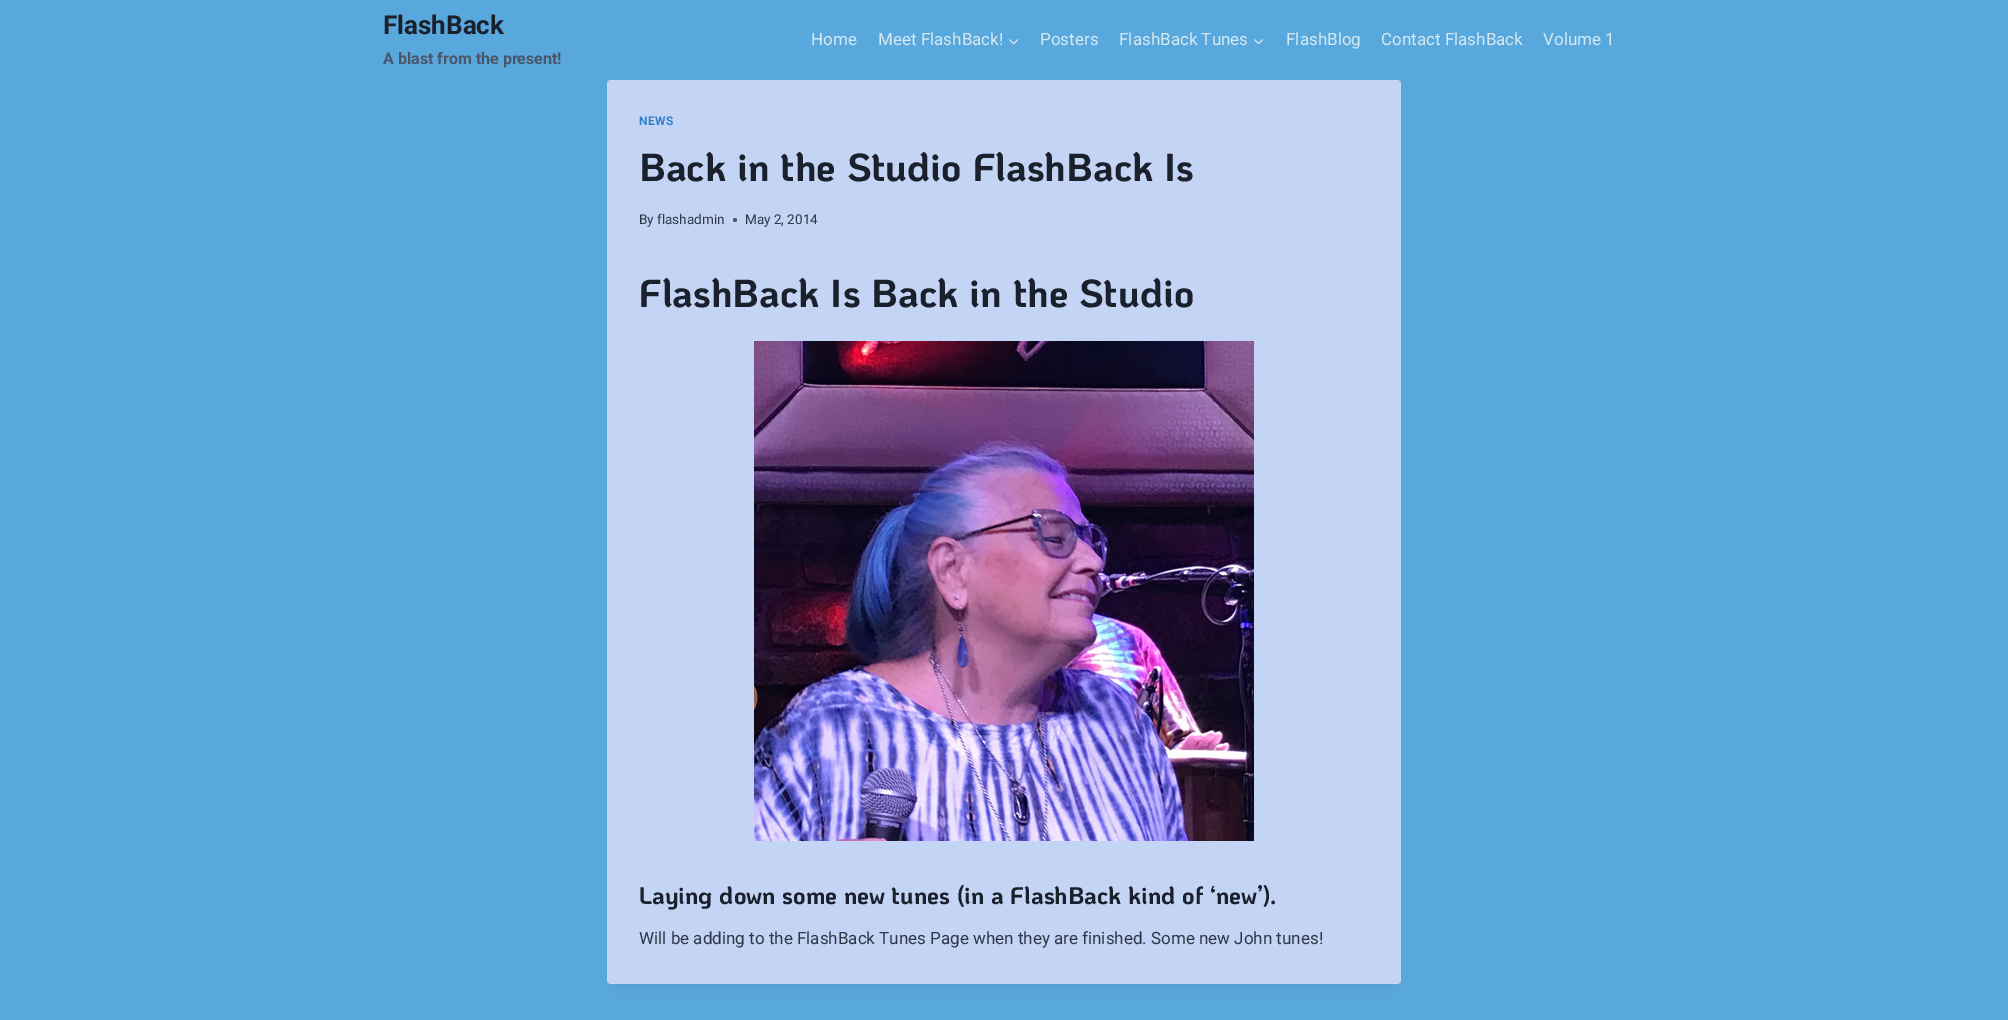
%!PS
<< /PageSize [2008 1020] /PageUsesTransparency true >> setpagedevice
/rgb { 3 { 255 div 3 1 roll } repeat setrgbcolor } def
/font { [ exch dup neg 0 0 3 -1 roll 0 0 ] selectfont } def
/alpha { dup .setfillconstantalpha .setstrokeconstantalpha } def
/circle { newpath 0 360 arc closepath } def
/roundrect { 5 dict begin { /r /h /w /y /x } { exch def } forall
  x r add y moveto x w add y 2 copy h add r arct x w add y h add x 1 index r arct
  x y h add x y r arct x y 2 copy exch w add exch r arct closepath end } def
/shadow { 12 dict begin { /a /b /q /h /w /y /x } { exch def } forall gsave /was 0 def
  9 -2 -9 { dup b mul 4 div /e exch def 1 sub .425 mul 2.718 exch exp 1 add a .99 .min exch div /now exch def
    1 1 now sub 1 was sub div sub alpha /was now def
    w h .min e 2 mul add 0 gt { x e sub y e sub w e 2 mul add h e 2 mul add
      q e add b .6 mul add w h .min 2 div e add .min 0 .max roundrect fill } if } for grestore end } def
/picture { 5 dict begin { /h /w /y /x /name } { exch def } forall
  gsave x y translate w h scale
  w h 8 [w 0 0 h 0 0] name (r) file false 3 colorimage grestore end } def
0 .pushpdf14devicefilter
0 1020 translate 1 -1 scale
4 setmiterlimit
89 168 221 rgb
0 0 2008 1020 rectfill
(img/1.rgb) 1009 39 9 6 picture
(img/1.rgb) 1254 39 9 6 picture
0 0 0 rgb
617 105 774 884 0 7.5 0.05 shadow
196 212 245 rgb
607 80 794 904 4 roundrect fill
75 86 107 rgb
735 220 2 circle fill
(img/2.rgb) 754 341 500 500 picture
/Roboto-Bold 26 font
26 32 44 rgb
383 34 moveto (FlashBack) show
/Roboto-Bold 16 font
74 85 104 rgb
383 64 moveto (A blast from the present!) show
/Roboto-Regular 17 font
213 233 240 rgb
[
  [(Home) 811 45]
  [(Meet FlashBack!) 878 45]
  [(Posters) 1040 45]
  [(FlashBack Tunes) 1119 45]
  [(FlashBlog) 1286 45]
  [(Contact FlashBack) 1381 45]
  [(Volume 1) 1543 45]
] { aload pop moveto show } forall
/Roboto-Bold 12 font
49 130 206 rgb
639 125 moveto 0.5 0 (NEWS) ashow
/KoHo-Bold 39 font
26 32 44 rgb
639 181 moveto (Back in the Studio FlashBack Is) show
/Roboto-Regular 13.5 font
45 55 72 rgb
639 224 moveto (By flashadmin) show
745 224 moveto (May 2, 2014) show
/KoHo-Bold 39 font
26 32 44 rgb
639 307 moveto (FlashBack Is Back in the Studio) show
/KoHo-Bold 24 font
639 904 moveto (Laying down some new tunes \(in a FlashBack kind of ‘new’\).) show
/Roboto-Regular 17 font
45 55 72 rgb
639 944 moveto (Will be adding to the FlashBack Tunes Page when they are finished. Some new John tunes!) show
.poppdf14devicefilter showpage
